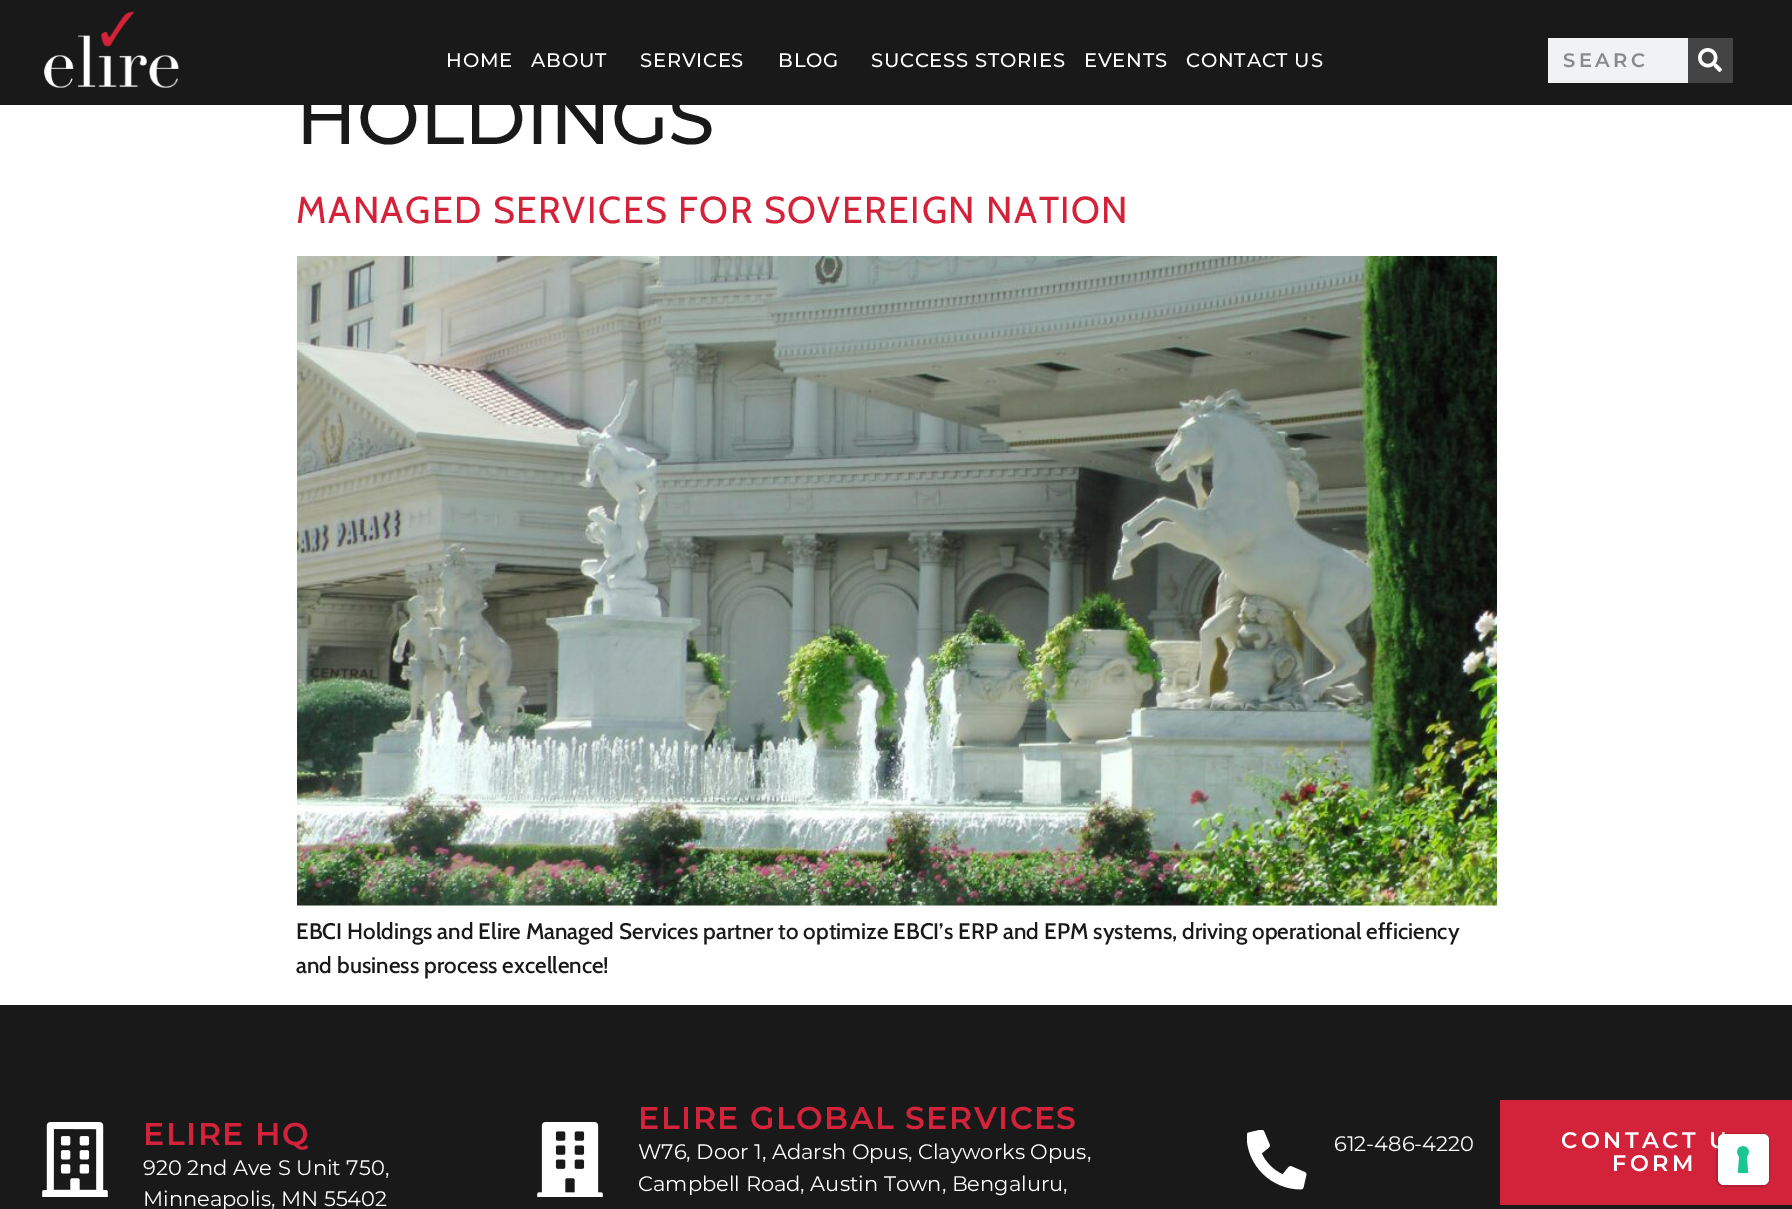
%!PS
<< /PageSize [1792 1209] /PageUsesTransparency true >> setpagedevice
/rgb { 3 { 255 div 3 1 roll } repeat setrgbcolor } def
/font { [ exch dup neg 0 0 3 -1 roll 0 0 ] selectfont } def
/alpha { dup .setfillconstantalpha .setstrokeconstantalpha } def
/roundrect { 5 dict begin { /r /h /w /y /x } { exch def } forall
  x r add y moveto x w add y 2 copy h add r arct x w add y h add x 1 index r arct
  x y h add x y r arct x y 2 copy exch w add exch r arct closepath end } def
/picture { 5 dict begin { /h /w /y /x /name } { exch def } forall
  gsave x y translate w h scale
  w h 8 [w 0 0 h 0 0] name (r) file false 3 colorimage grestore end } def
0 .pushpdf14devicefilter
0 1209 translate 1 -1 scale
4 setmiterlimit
255 255 255 rgb
0 0 1792 1209 rectfill
25 25 26 rgb
0 0 1792 105 rectfill
(img/1.rgb) 44 11 135 77 picture
241 242 243 rgb
1548 38 140 45 rectfill
68 68 68 rgb
1688 38 45 45 rectfill
(img/2.rgb) 1698 48 24 24 picture
(img/3.rgb) 297 256 1200 650 picture
25 25 26 rgb
0 1005 1792 204 rectfill
(img/4.rgb) 42 1122 66 75 picture
(img/5.rgb) 537 1122 66 75 picture
(img/6.rgb) 1247 1130 60 60 picture
211 35 58 rgb
1500 1100 292 105 rectfill
/Montserrat-Medium 19.5 font
255 255 255 rgb
446 67 moveto 0.75 0 (HOME) ashow
531 67 moveto 0.75 0 (ABOUT) ashow
640 67 moveto 0.75 0 (SERVICES) ashow
778 67 moveto 0.75 0 (BLOG) ashow
871 67 moveto 0.75 0 (SUCCESS STORIES) ashow
1084 67 moveto 0.75 0 (EVENTS) ashow
1186 67 moveto 0.75 0 (CONTACT US) ashow
/Montserrat-SemiBold 19.5 font
137 138 138 rgb
1563 67 moveto 3.5 0 (SEARC) ashow
/Montserrat-Medium 75 font
25 25 26 rgb
296 144 moveto (HOLDINGS) show
/Cabin-Regular 37.5 font
211 35 58 rgb
296 223 moveto 1.5 0 (MANAGED SERVICES FOR SOVEREIGN NATION) ashow
/Cabin-Medium 22.5 font
25 25 26 rgb
296 939 moveto (EBCI Holdings and Elire Managed Services partner to optimize EBCI’s ERP and EPM systems, driving operational efficiency) show
296 973 moveto (and business process excellence!) show
/Montserrat-SemiBold 31.5 font
211 35 58 rgb
143 1145 moveto 1.5 0 (ELIRE HQ) ashow
/Montserrat-Regular 21 font
255 255 255 rgb
143 1175 moveto (920 2nd Ave S Unit 750,) show
143 1206 moveto (Minneapolis, MN 55402) show
/Montserrat-SemiBold 31.5 font
211 35 58 rgb
638 1129 moveto 1.5 0 (ELIRE GLOBAL SERVICES) ashow
/Montserrat-Regular 21 font
255 255 255 rgb
[
  [(W76, Door 1, Adarsh Opus, Clayworks Opus,) 638 1159]
  [(Campbell Road, Austin Town, Bengaluru,) 638 1191]
  [(612-486-4220) 1334 1151]
] { aload pop moveto show } forall
/Montserrat-SemiBold 22.5 font
1561 1148 moveto 3.5 0 (CONTACT U) ashow
1612 1171 moveto 3.5 0 (FORM) ashow
0.15 alpha
0 0 0 rgb
2 setlinewidth
1717 1134 52 52 7 roundrect stroke
1 alpha
255 255 255 rgb
1718 1134 51 51 6 roundrect fill
(img/7.rgb) 1737 1146 12 27 picture
.poppdf14devicefilter showpage
